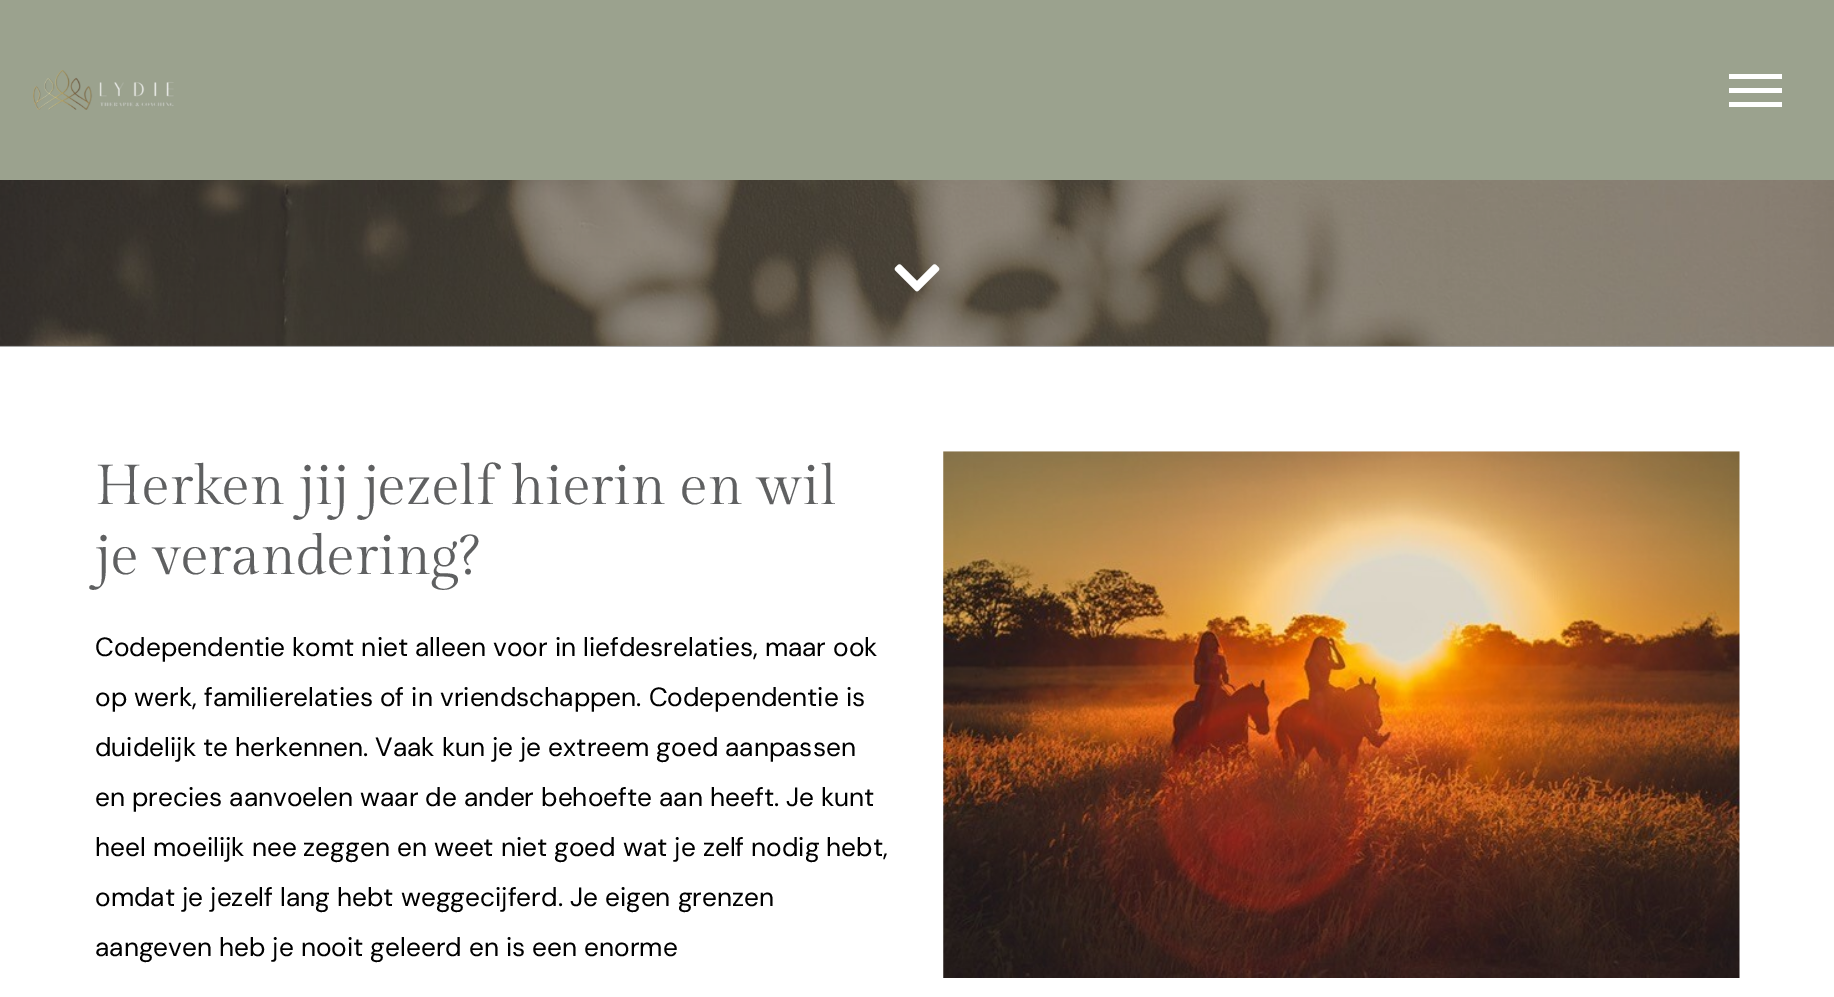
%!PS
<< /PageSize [1834 997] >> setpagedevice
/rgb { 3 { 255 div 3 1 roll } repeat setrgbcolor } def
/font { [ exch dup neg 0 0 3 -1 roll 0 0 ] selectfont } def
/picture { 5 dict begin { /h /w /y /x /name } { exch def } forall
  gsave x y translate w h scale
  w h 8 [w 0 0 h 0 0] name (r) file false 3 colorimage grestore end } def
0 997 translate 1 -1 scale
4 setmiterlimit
255 255 255 rgb
0 0 1834 997 rectfill
166 166 166 rgb
0 345 1834 2 rectfill
155 162 142 rgb
0 0 1834 180 rectfill
(img/1.rgb) 33 70 141 40 picture
[
  [1729 74 53 5 255 255 255]
  [1729 88 53 5 255 255 255]
  [1729 102 53 5 255 255 255]
] { aload pop rgb rectfill } forall
(img/2.rgb) 0 180 1834 166 picture
(img/3.rgb) 894 264 46 28 picture
(img/4.rgb) 943 451 797 527 picture
/GildaDisplay-Regular 56 font
95 96 97 rgb
95 504 moveto (Herken jij jezelf hierin en wil) show
95 574 moveto (je verandering?) show
/DMSans-Regular 26.25 font
0 0 0 rgb
[
  [(Codependentie komt niet alleen voor in liefdesrelaties, maar ook) 95 656]
  [(op werk, familierelaties of in vriendschappen. Codependentie is) 95 706]
  [(duidelijk te herkennen. Vaak kun je je extreem goed aanpassen) 95 756]
  [(en precies aanvoelen waar de ander behoefte aan heeft. Je kunt) 95 806]
  [(heel moeilijk nee zeggen en weet niet goed wat je zelf nodig hebt,) 95 856]
  [(omdat je jezelf lang hebt weggecijferd. Je eigen grenzen) 95 906]
  [(aangeven heb je nooit geleerd en is een enorme) 95 956]
] { aload pop moveto show } forall
showpage
